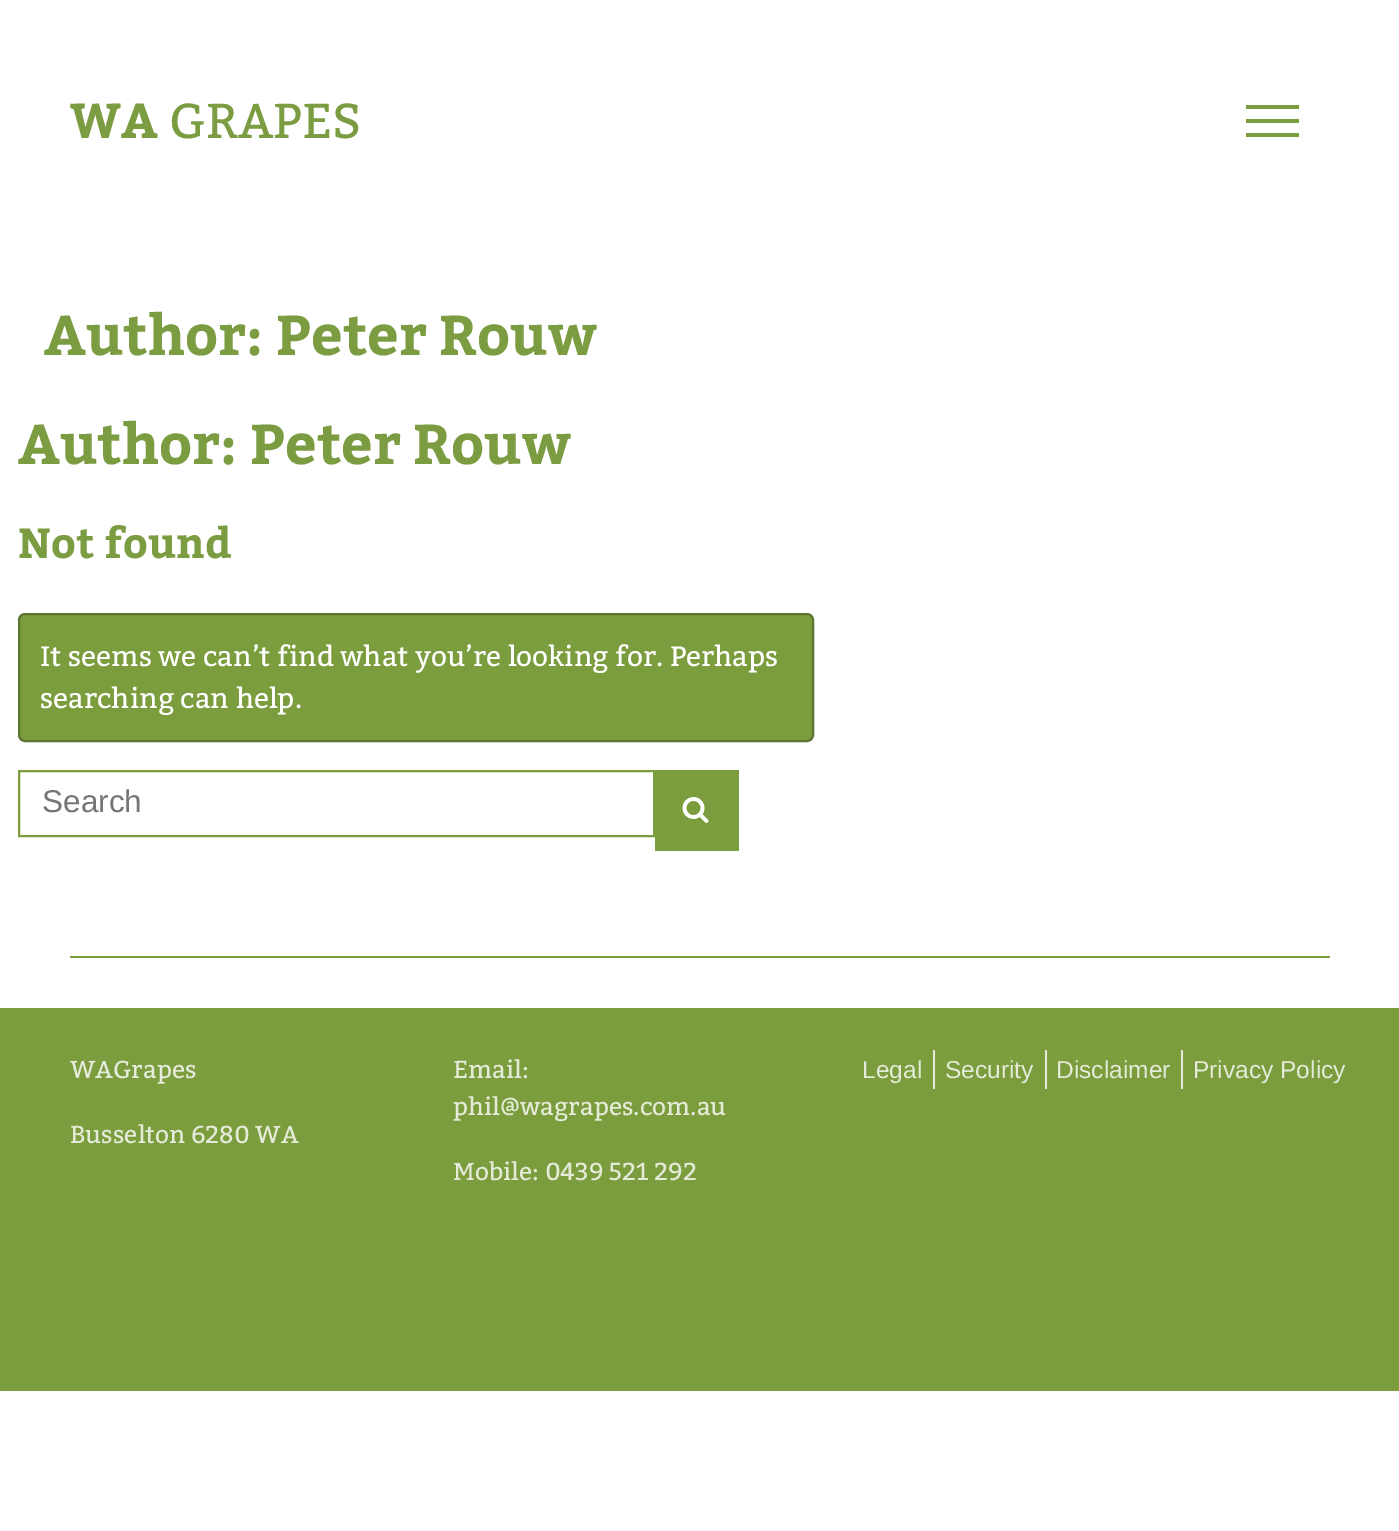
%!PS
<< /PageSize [1399 1531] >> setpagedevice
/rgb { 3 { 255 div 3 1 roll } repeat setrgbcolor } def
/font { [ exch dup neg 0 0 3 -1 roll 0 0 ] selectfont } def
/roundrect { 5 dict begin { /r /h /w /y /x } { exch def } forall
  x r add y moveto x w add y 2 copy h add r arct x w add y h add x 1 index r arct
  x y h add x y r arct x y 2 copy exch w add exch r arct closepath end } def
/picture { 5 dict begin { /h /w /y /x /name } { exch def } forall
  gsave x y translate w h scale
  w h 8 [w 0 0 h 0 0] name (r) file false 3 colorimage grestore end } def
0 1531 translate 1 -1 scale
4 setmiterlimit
255 255 255 rgb
0 0 1399 1531 rectfill
[
  [1246 105 53 4 123 157 62]
  [1246 119 53 4 123 157 62]
  [1246 133 53 4 123 157 62]
] { aload pop rgb rectfill } forall
19 614 794 127 6 roundrect gsave fill grestore
92 118 47 rgb
2 setlinewidth
stroke
123 157 62 rgb
19 771 635 65 rectstroke
655 770 84 81 rectfill
(img/1.rgb) 682 797 27 26 picture
[
  [70 956 1260 2 123 157 62]
  [0 1008 1399 383 123 157 62]
  [933 1050 2 39 229 235 216]
  [1045 1050 2 39 229 235 216]
  [1181 1050 2 39 229 235 216]
] { aload pop rgb rectfill } forall
/Bitter-Bold 49 font
123 156 65 rgb
70 138 moveto (WA) show
/Bitter-Regular 49 font
169 138 moveto (GRAPES) show
/Bitter-Bold 56 font
44 355 moveto (Author: Peter Rouw) show
18 464 moveto (Author: Peter Rouw) show
/Bitter-Bold 42 font
18 558 moveto (Not found) show
/Bitter-Regular 28 font
255 255 255 rgb
40 666 moveto (It seems we can’t find what you’re looking for. Perhaps) show
40 708 moveto (searching can help.) show
/LiberationSans-Regular 31.5 font
117 117 117 rgb
42 812 moveto (Search) show
/Bitter-Regular 24.5 font
229 235 216 rgb
[
  [(WAGrapes) 70 1078]
  [(Busselton 6280 WA) 70 1143]
  [(Email:) 453 1078]
  [(phil@wagrapes.com.au) 453 1115]
  [(Mobile: 0439 521 292) 453 1180]
] { aload pop moveto show } forall
/LiberationSans-Regular 24.5 font
[
  [(Legal) 862 1078]
  [(Security) 945 1078]
  [(Disclaimer) 1056 1078]
  [(Privacy Policy) 1193 1078]
] { aload pop moveto show } forall
showpage
